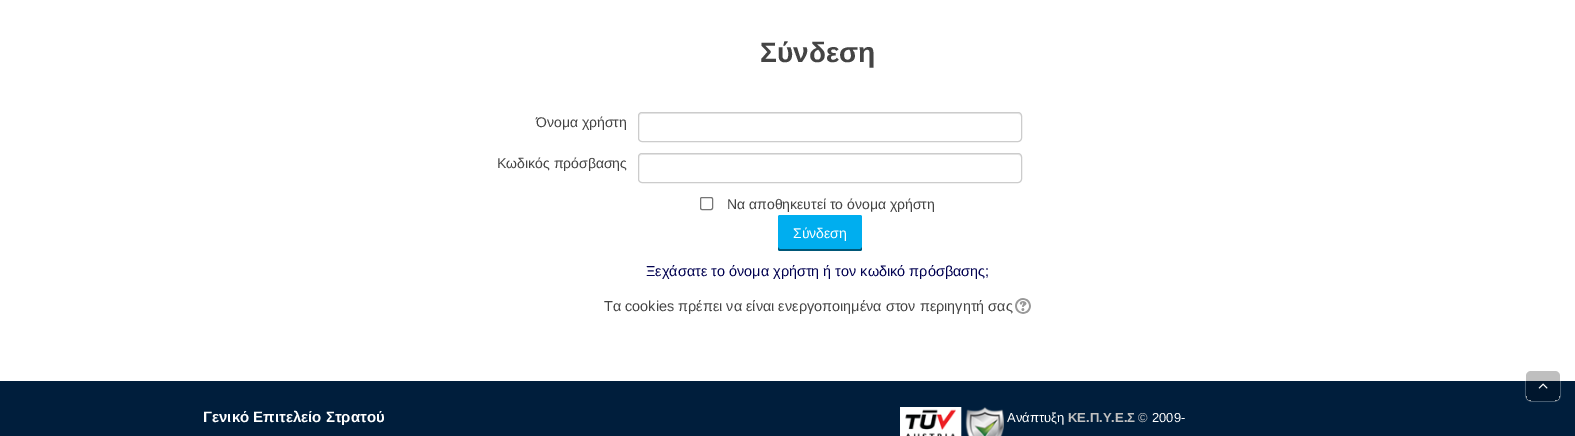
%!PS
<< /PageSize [1575 436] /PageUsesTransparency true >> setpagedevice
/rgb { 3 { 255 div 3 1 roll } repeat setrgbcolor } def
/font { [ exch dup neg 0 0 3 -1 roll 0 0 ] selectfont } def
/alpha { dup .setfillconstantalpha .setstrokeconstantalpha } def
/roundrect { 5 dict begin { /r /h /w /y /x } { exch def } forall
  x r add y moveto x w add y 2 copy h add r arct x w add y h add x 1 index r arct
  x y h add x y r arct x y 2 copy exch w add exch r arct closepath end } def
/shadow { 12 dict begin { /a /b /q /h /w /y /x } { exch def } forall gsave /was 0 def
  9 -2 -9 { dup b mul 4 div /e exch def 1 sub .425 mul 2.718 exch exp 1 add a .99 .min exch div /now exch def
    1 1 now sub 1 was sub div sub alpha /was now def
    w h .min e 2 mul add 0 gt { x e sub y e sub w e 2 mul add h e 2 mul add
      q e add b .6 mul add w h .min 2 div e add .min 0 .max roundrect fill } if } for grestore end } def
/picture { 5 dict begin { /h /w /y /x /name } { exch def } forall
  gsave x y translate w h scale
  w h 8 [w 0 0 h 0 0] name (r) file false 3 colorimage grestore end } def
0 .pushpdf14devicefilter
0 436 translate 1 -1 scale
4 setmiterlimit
255 255 255 rgb
0 0 1575 436 rectfill
236 236 236 rgb
642 114 moveto 1018 114 lineto 1020 114 1021 115 1021 117 curveto 1021 115 1020 113 1018 113 curveto 642 113 lineto 640 114 lineto 639 117 lineto 639 115 640 114 642 114 curveto closepath fill
204 204 204 rgb
638.5 112.5 383 29 3.5 roundrect stroke
236 236 236 rgb
642 155 moveto 1018 155 lineto 1020 155 1021 156 1021 158 curveto 1021 156 1020 154 1018 154 curveto 642 154 lineto 640 155 lineto 639 158 lineto 639 156 640 155 642 155 curveto closepath fill
204 204 204 rgb
638.5 153.5 383 29 3.5 roundrect stroke
118 118 118 rgb
700.5 197.5 12 12 1.5 roundrect stroke
0 174 239 rgb
778 215 84 36 2 roundrect fill
0.5 alpha
0 0 0 rgb
778 247 moveto 778 249 lineto 778 250 779 251 780 251 curveto 860 251 lineto 861 251 862 250 862 249 curveto 862 247 lineto 862 248 861 249 860 249 curveto 780 249 lineto 779 249 778 248 778 247 curveto closepath fill
1 alpha
(img/1.rgb) 1015 298 16 16 picture
0 30 60 rgb
0 381 1575 55 rectfill
gsave
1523 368 moveto 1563 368 lineto 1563 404 lineto 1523 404 lineto closepath 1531 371 moveto 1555 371 lineto 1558 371 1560 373 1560 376 curveto 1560 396 lineto 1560 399 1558 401 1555 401 curveto 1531 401 lineto 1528 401 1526 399 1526 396 curveto 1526 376 lineto 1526 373 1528 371 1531 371 curveto closepath eoclip newpath
255 255 255 rgb
1526 371 34 30 5 0.5 1 shadow
grestore
0.25 alpha
0 0 0 rgb
1526 371 34 30 5 roundrect fill
1 alpha
(img/2.rgb) 1538 383 10 6 picture
(img/3.rgb) 900 407 104 29 picture
/LiberationSans-Bold 28 font
68 68 68 rgb
760 62 moveto (Σύνδεση) show
/LiberationSans-Regular 14 font
[
  [(Όνομα χρήστη) 536 127]
  [(Κωδικός πρόσβασης) 497 168]
  [(Να αποθηκευτεί το όνομα χρήστη) 727 209]
] { aload pop moveto show } forall
255 255 255 rgb
793 238 moveto (Σύνδεση) show
/LiberationSans-Regular 14.45 font
1 1 80 rgb
646 276 moveto (Ξεχάσατε το όνομα χρήστη ή τον κωδικό πρόσβασης;) show
68 68 68 rgb
604 311 moveto (Τα cookies πρέπει να είναι ενεργοποιημένα στον περιηγητή σας) show
/LiberationSans-Bold 15 font
255 255 255 rgb
203 422 moveto (Γενικό Επιτελείο Στρατού) show
/LiberationSans-Regular 13 font
1007 422 moveto (Ανάπτυξη) show
/LiberationSans-Bold 13 font
192 192 192 rgb
1068 422 moveto (ΚΕ.Π.Υ.Ε.Σ) show
/LiberationSans-Regular 13 font
1138 422 moveto (©) show
255 255 255 rgb
1152 422 moveto (2009-) show
.poppdf14devicefilter showpage
